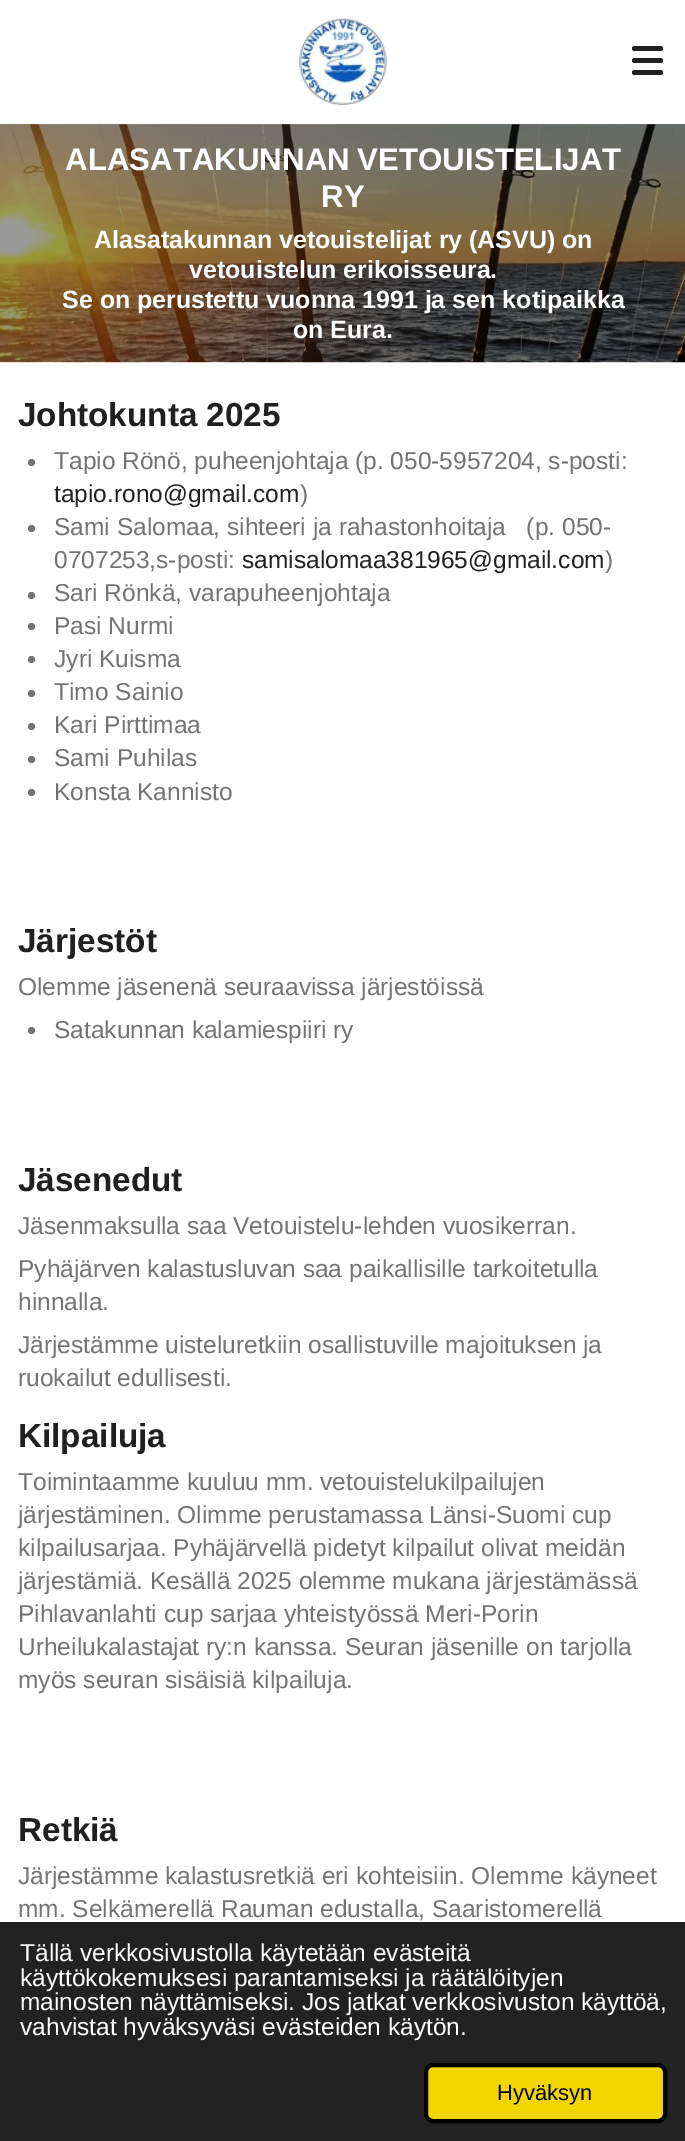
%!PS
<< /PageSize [685 2141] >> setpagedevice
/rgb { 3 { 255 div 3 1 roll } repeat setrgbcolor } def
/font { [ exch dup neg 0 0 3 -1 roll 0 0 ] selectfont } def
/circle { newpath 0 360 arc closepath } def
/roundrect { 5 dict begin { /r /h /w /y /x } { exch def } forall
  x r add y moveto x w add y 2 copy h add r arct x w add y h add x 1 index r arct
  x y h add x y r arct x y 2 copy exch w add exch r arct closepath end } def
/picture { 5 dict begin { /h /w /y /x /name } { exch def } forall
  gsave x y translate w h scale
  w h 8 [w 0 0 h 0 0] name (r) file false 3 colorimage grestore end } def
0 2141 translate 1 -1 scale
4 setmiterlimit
255 255 255 rgb
0 0 685 2141 rectfill
(img/1.rgb) 299 17 88 88 picture
32 32 32 rgb
632 58 31 5 2.5 roundrect fill
632 46 31 5 2.5 roundrect fill
632 70 31 5 2.5 roundrect fill
(img/2.rgb) 0 124 685 239 picture
115 115 115 rgb
31.5 462.5 3.5 circle fill
31.5 528.5 3.5 circle fill
31.5 595.5 3.5 circle fill
31.5 626.5 3.5 circle fill
31.5 659.5 3.5 circle fill
31.5 693.5 3.5 circle fill
31.5 726.5 3.5 circle fill
31.5 759.5 3.5 circle fill
31.5 792.5 3.5 circle fill
31.5 1030.5 3.5 circle fill
34 34 34 rgb
0 1922 685 219 rectfill
241 214 0 rgb
426 2065 239 56 7 roundrect gsave fill grestore
0 0 0 rgb
4 setlinewidth
stroke
/LiberationSans-Bold 31.25 font
255 255 255 rgb
65 170 moveto -1 0 32 (ALASATAKUNNAN VETOUISTELIJAT) widthshow
321 207 moveto (RY) show
/LiberationSans-Bold 25 font
[
  [(Alasatakunnan vetouistelijat ry \(ASVU\) on) 94 248]
  [(vetouistelun erikoisseura.) 189 278]
  [(Se on perustettu vuonna 1991 ja sen kotipaikka) 62 308]
  [(on Eura.) 293 338]
] { aload pop moveto show } forall
/LiberationSans-Bold 33.25 font
32 32 32 rgb
18 426 moveto (Johtokunta 2025) show
/LiberationSans-Regular 24.5 font
115 115 115 rgb
54 469 moveto (Tapio Rönö, puheenjohtaja \(p. 050-5957204, s-posti:) show
32 32 32 rgb
54 502 moveto (tapio.rono@gmail.com) show
115 115 115 rgb
[
  [(\)) 300 502]
  [(Sami Salomaa, sihteeri ja rahastonhoitaja   \(p. 050-) 54 535]
  [(0707253,s-posti:) 54 568]
] { aload pop moveto show } forall
32 32 32 rgb
242 568 moveto (samisalomaa381965@gmail.com) show
115 115 115 rgb
[
  [(\)) 605 568]
  [(Sari Rönkä, varapuheenjohtaja) 54 601]
  [(Pasi Nurmi) 54 634]
  [(Jyri Kuisma) 54 667]
  [(Timo Sainio) 54 700]
  [(Kari Pirttimaa) 54 733]
  [(Sami Puhilas) 54 766]
  [(Konsta Kannisto) 54 800]
] { aload pop moveto show } forall
/LiberationSans-Bold 33.25 font
32 32 32 rgb
18 952 moveto (Järjestöt) show
/LiberationSans-Regular 24.5 font
115 115 115 rgb
18 995 moveto (Olemme jäsenenä seuraavissa järjestöissä) show
54 1038 moveto (Satakunnan kalamiespiiri ry) show
/LiberationSans-Bold 33.25 font
32 32 32 rgb
18 1191 moveto (Jäsenedut) show
/LiberationSans-Regular 24.5 font
115 115 115 rgb
[
  [(Jäsenmaksulla saa Vetouistelu-lehden vuosikerran.) 18 1234]
  [(Pyhäjärven kalastusluvan saa paikallisille tarkoitetulla) 18 1277]
  [(hinnalla.) 18 1310]
  [(Järjestämme uisteluretkiin osallistuville majoituksen ja) 18 1353]
  [(ruokailut edullisesti.) 18 1386]
] { aload pop moveto show } forall
/LiberationSans-Bold 33.25 font
32 32 32 rgb
18 1447 moveto (Kilpailuja) show
/LiberationSans-Regular 24.5 font
115 115 115 rgb
[
  [(Toimintaamme kuuluu mm. vetouistelukilpailujen) 18 1490]
  [(järjestäminen. Olimme perustamassa Länsi-Suomi cup) 18 1523]
  [(kilpailusarjaa. Pyhäjärvellä pidetyt kilpailut olivat meidän) 18 1556]
  [(järjestämiä. Kesällä 2025 olemme mukana järjestämässä) 18 1589]
  [(Pihlavanlahti cup sarjaa yhteistyössä Meri-Porin) 18 1622]
  [(Urheilukalastajat ry:n kanssa. Seuran jäsenille on tarjolla) 18 1655]
  [(myös seuran sisäisiä kilpailuja.) 18 1688]
] { aload pop moveto show } forall
/LiberationSans-Bold 33.25 font
32 32 32 rgb
18 1841 moveto (Retkiä) show
/LiberationSans-Regular 24.5 font
115 115 115 rgb
18 1884 moveto (Järjestämme kalastusretkiä eri kohteisiin. Olemme käyneet) show
18 1917 moveto (mm. Selkämerellä Rauman edustalla, Saaristomerellä) show
255 255 255 rgb
[
  [(Tällä verkkosivustolla käytetään evästeitä) 20 1961]
  [(käyttökokemuksesi parantamiseksi ja räätälöityjen) 20 1986]
  [(mainosten näyttämiseksi. Jos jatkat verkkosivuston käyttöä,) 20 2010]
  [(vahvistat hyväksyväsi evästeiden käytön.) 20 2035]
] { aload pop moveto show } forall
/LiberationSans-Regular 22 font
0 0 0 rgb
497 2100 moveto (Hyväksyn) show
showpage
